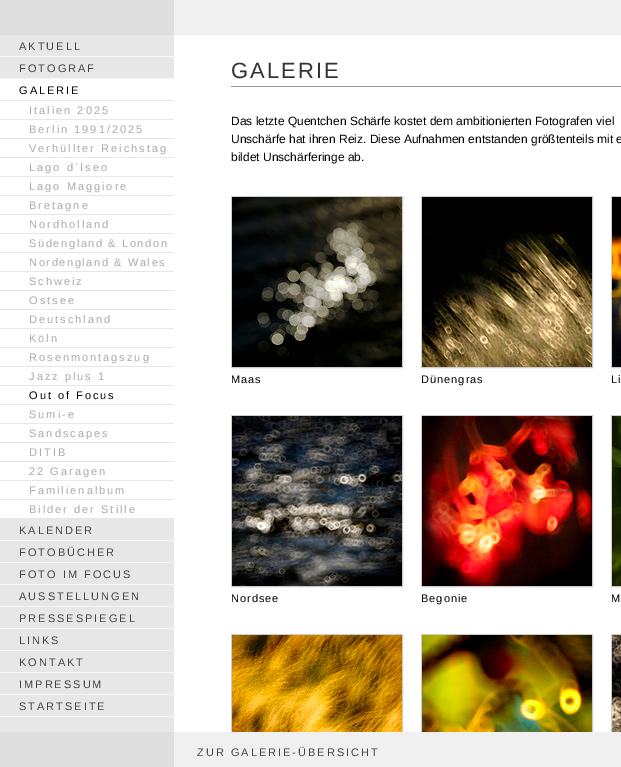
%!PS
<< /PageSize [621 767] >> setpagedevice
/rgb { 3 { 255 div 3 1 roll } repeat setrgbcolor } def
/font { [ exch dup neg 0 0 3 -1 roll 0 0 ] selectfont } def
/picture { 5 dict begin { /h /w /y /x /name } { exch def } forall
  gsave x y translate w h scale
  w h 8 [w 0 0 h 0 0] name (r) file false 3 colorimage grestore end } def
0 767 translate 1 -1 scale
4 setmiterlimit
231 231 231 rgb
0 0 621 767 rectfill
[
  [0 0 174 35 222 222 222]
  [174 0 447 35 240 240 240]
  [0 56 174 1 246 246 246]
  [0 78 174 1 246 246 246]
  [0 79 174 21 255 255 255]
  [0 101 174 18 255 255 255]
  [0 120 174 18 255 255 255]
  [0 139 174 18 255 255 255]
  [0 158 174 18 255 255 255]
  [0 177 174 18 255 255 255]
  [0 196 174 18 255 255 255]
  [0 215 174 18 255 255 255]
  [0 234 174 18 255 255 255]
  [0 253 174 18 255 255 255]
  [0 272 174 18 255 255 255]
  [0 291 174 18 255 255 255]
  [0 310 174 18 255 255 255]
  [0 329 174 18 255 255 255]
  [0 348 174 18 255 255 255]
  [0 367 174 18 255 255 255]
  [0 386 174 18 255 255 255]
  [0 405 174 18 255 255 255]
  [0 424 174 18 255 255 255]
  [0 443 174 18 255 255 255]
  [0 462 174 18 255 255 255]
  [0 481 174 18 255 255 255]
  [0 500 174 18 255 255 255]
  [0 540 174 1 246 246 246]
  [0 562 174 1 246 246 246]
  [0 584 174 1 246 246 246]
  [0 606 174 1 246 246 246]
  [0 628 174 1 246 246 246]
  [0 650 174 1 246 246 246]
  [0 672 174 1 246 246 246]
  [0 694 174 1 246 246 246]
  [0 716 174 1 246 246 246]
  [174 35 447 697 255 255 255]
  [231 86 390 1 153 153 153]
] { aload pop rgb rectfill } forall
204 204 204 rgb
231.5 196.5 171 171 rectstroke
(img/1.rgb) 232 197 170 170 picture
421.5 196.5 171 171 rectstroke
(img/2.rgb) 422 197 170 170 picture
611.5 196.5 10 171 rectstroke
(img/3.rgb) 612 197 9 170 picture
231.5 415.5 171 171 rectstroke
(img/4.rgb) 232 416 170 170 picture
421.5 415.5 171 171 rectstroke
(img/5.rgb) 422 416 170 170 picture
611.5 415.5 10 171 rectstroke
(img/6.rgb) 612 416 9 170 picture
231.5 634.5 171 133 rectstroke
(img/7.rgb) 232 635 170 97 picture
421.5 634.5 171 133 rectstroke
(img/8.rgb) 422 635 170 97 picture
611.5 634.5 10 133 rectstroke
(img/9.rgb) 612 635 9 97 picture
222 222 222 rgb
0 732 174 35 rectfill
240 240 240 rgb
174 732 447 35 rectfill
/LiberationSans-Regular 11 font
68 68 68 rgb
19 50 moveto 2 0 (AKTUELL) ashow
19 72 moveto 2 0 (FOTOGRAF) ashow
0 0 0 rgb
19 94 moveto 2 0 (GALERIE) ashow
170 170 170 rgb
29 114 moveto 2 0 (Italien 2025) ashow
29 133 moveto 2 0 (Berlin 1991/2025) ashow
29 152 moveto 2 0 (Verhüllter Reichstag) ashow
29 171 moveto 2 0 (Lago d´Iseo) ashow
29 190 moveto 2 0 (Lago Maggiore) ashow
29 209 moveto 2 0 (Bretagne) ashow
29 228 moveto 2 0 (Nordholland) ashow
29 247 moveto 1.6 0 (Südengland & London) ashow
29 266 moveto 1.6 0 (Nordengland & Wales) ashow
29 285 moveto 2 0 (Schweiz) ashow
29 304 moveto 2 0 (Ostsee) ashow
29 323 moveto 2 0 (Deutschland) ashow
29 342 moveto 2 0 (Köln) ashow
29 361 moveto 2 0 (Rosenmontagszug) ashow
29 380 moveto 2 0 (Jazz plus 1) ashow
0 0 0 rgb
29 399 moveto 2 0 (Out of Focus) ashow
170 170 170 rgb
29 418 moveto 2 0 (Sumi-e) ashow
29 437 moveto 2 0 (Sandscapes) ashow
29 456 moveto 2 0 (DITIB) ashow
29 475 moveto 2 0 (22 Garagen) ashow
29 494 moveto 2 0 (Familienalbum) ashow
29 513 moveto 2 0 (Bilder der Stille) ashow
68 68 68 rgb
19 534 moveto 2 0 (KALENDER) ashow
19 556 moveto 2 0 (FOTOBÜCHER) ashow
19 578 moveto 2 0 (FOTO IM FOCUS) ashow
19 600 moveto 2 0 (AUSSTELLUNGEN) ashow
19 622 moveto 2 0 (PRESSESPIEGEL) ashow
19 644 moveto 2 0 (LINKS) ashow
19 666 moveto 2 0 (KONTAKT) ashow
19 688 moveto 2 0 (IMPRESSUM) ashow
19 710 moveto 2 0 (STARTSEITE) ashow
/LiberationSans-Regular 22 font
51 51 51 rgb
231 78 moveto 2 0 (GALERIE) ashow
/LiberationSans-Regular 12 font
0 0 0 rgb
[
  [(Das letzte Quentchen Schärfe kostet dem ambitionierten Fotografen viel) 231 125]
  [(Unschärfe hat ihren Reiz. Diese Aufnahmen entstanden größtenteils mit e) 231 143]
  [(bildet Unschärferinge ab.) 231 161]
] { aload pop moveto show } forall
/LiberationSans-Regular 11 font
231 383 moveto 1 0 (Maas) ashow
421 383 moveto 1 0 (Dünengras) ashow
611 383 moveto 1 0 (Li) ashow
231 602 moveto 1 0 (Nordsee) ashow
421 602 moveto 1 0 (Begonie) ashow
611 602 moveto 1 0 (M) ashow
68 68 68 rgb
197 756 moveto 2 0 (ZUR GALERIE-ÜBERSICHT) ashow
showpage
